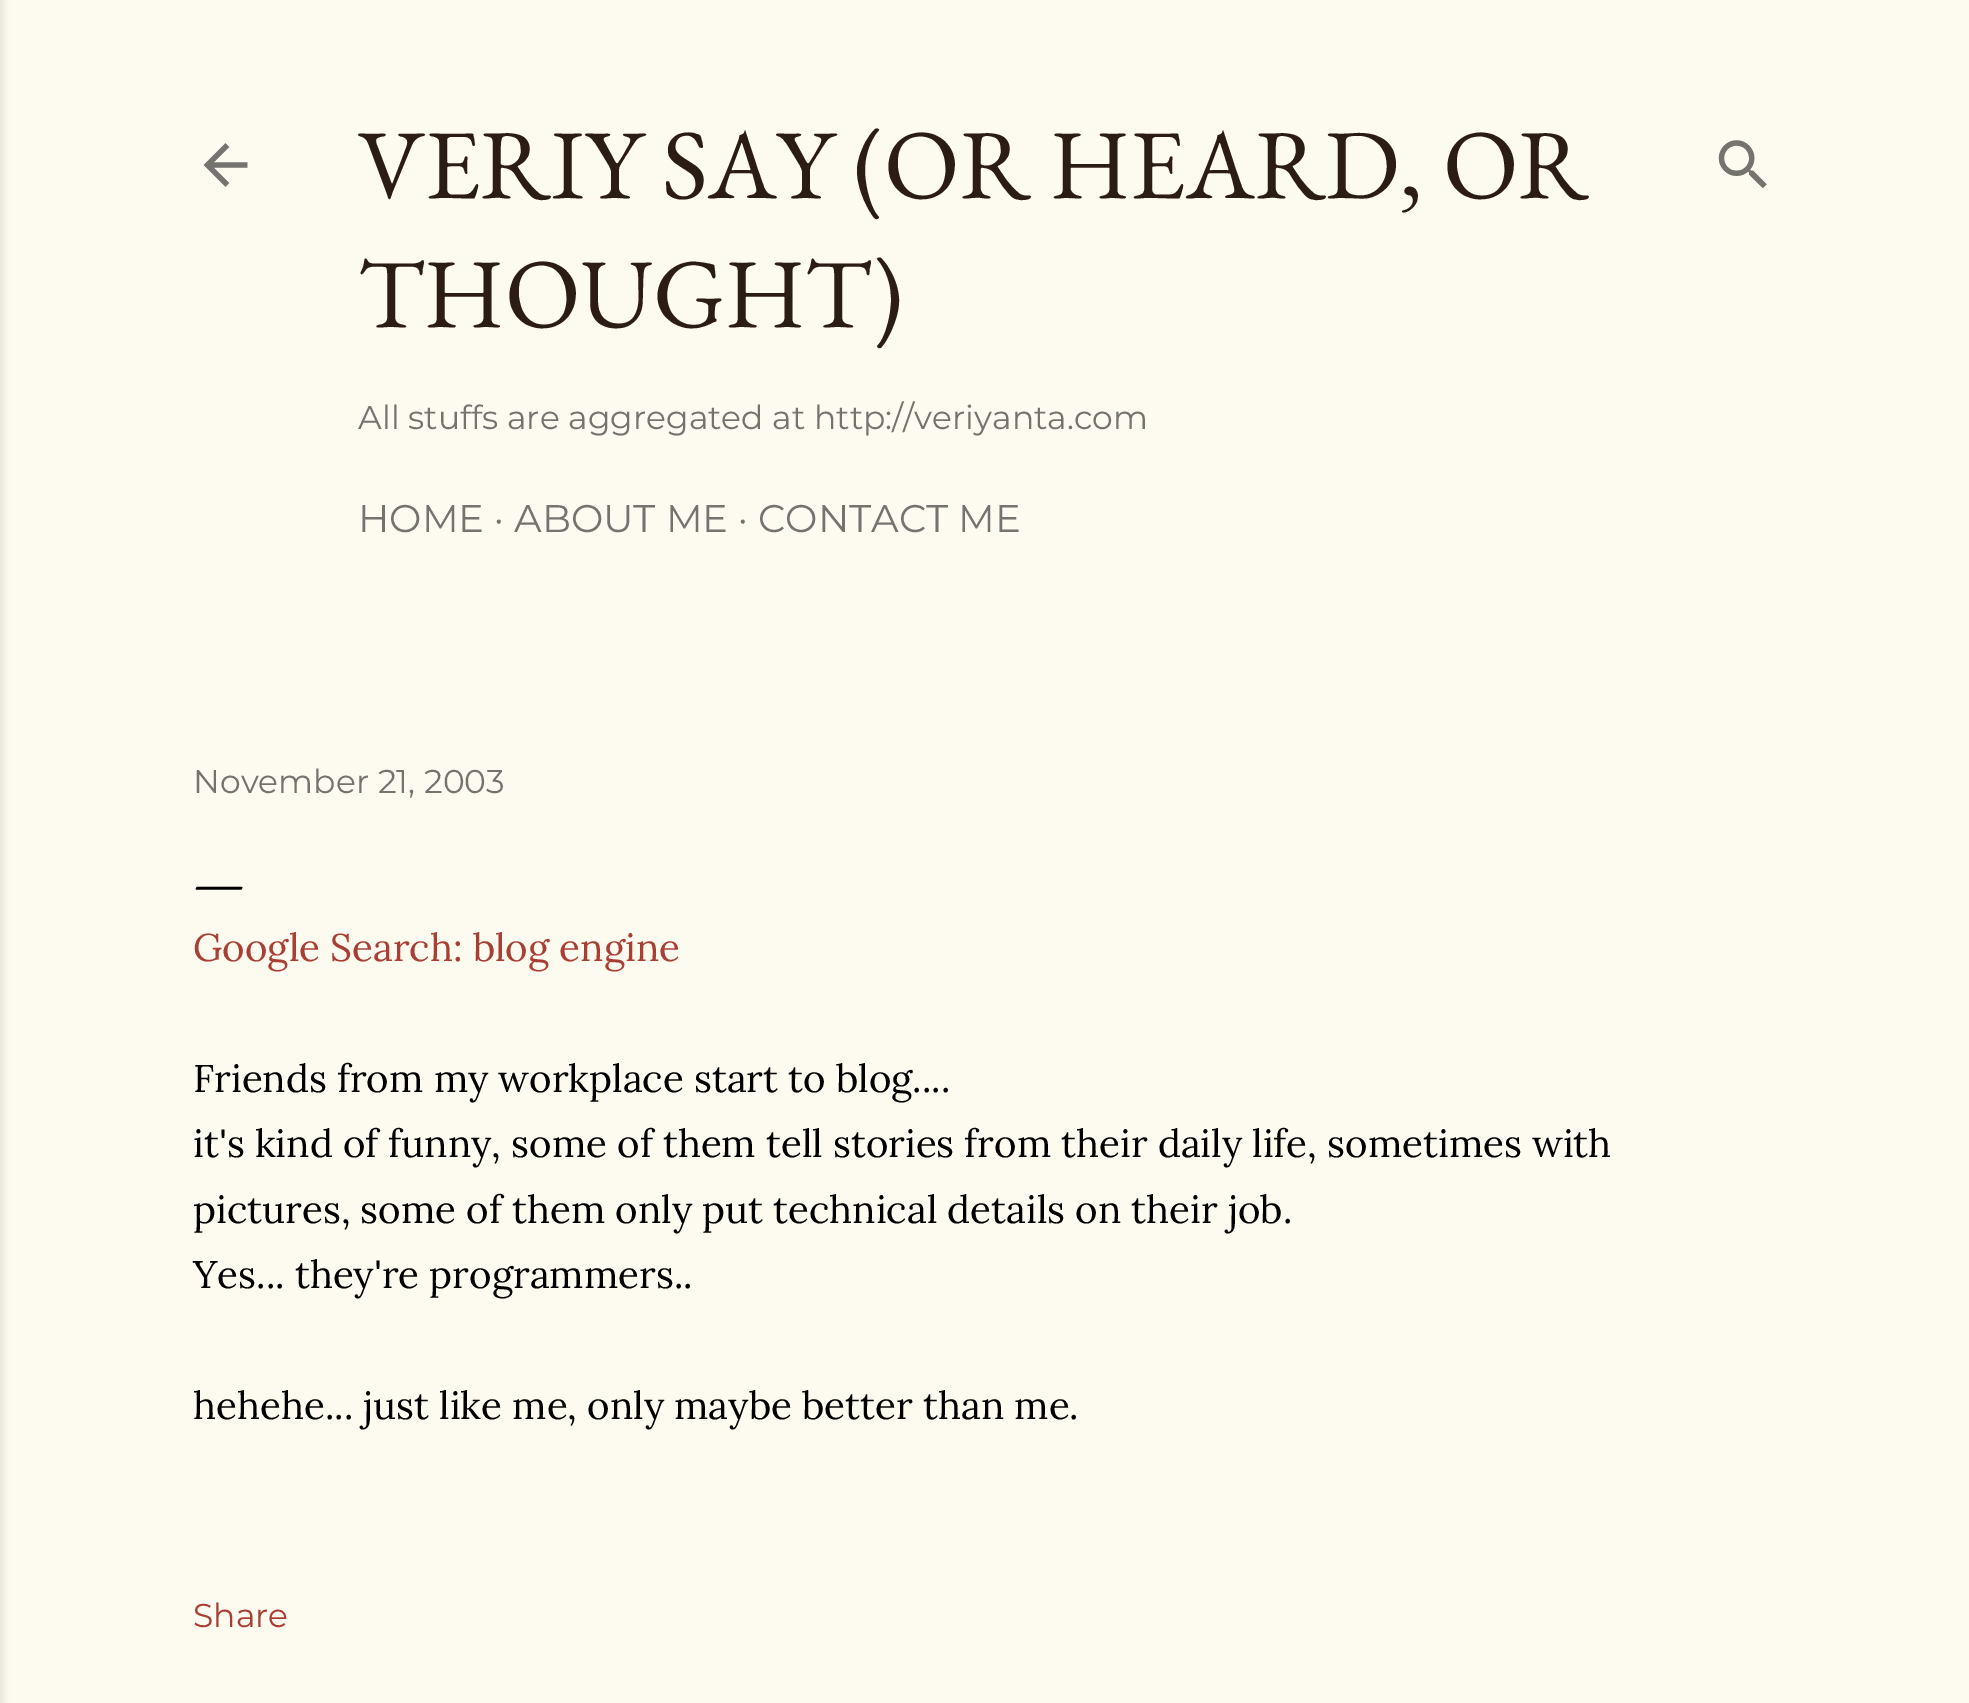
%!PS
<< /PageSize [1969 1703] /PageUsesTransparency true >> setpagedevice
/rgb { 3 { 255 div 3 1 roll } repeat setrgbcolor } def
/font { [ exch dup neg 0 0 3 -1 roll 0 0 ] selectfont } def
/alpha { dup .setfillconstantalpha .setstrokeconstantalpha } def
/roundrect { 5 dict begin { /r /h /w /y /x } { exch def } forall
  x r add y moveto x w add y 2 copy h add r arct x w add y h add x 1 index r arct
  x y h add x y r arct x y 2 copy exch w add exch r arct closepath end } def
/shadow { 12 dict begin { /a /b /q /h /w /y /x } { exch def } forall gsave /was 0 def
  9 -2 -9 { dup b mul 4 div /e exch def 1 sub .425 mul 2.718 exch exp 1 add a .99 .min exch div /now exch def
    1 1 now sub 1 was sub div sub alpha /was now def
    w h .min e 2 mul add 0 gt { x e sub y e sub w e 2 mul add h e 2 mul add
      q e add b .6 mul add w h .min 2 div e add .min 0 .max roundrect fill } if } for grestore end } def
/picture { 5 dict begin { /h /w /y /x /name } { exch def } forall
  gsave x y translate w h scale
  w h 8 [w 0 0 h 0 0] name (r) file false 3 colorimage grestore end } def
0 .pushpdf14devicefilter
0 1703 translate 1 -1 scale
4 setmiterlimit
253 250 240 rgb
0 0 1969 1703 rectfill
0 0 0 rgb
-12 0 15 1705 0 4 0.1 shadow
(img/1.rgb) 203 143 45 44 picture
(img/2.rgb) 1718 140 49 49 picture
/EBGaramond-Regular 99 font
44 29 20 rgb
358 198 moveto (VERIY SAY \(OR HEARD, OR) show
358 327 moveto (THOUGHT\)) show
/Montserrat-Regular 33 font
116 115 110 rgb
358 429 moveto (All stuffs are aggregated at http://veriyanta.com) show
/Montserrat-Regular 38.5 font
358 532 moveto (HOME · ABOUT ME · CONTACT ME) show
/Montserrat-Regular 33 font
193 793 moveto (November 21, 2003) show
/EBGaramond-Regular 55 font
0 0 0 rgb
193 900 moveto (—) show
/Lora-Regular 38.5 font
169 62 51 rgb
193 961 moveto (Google Search: blog engine) show
0 0 0 rgb
[
  [(Friends from my workplace start to blog....) 193 1092]
  [(it's kind of funny, some of them tell stories from their daily life, sometimes with) 193 1157]
  [(pictures, some of them only put technical details on their job.) 193 1223]
  [(Yes... they're programmers..) 193 1288]
  [(hehehe... just like me, only maybe better than me.) 193 1419]
] { aload pop moveto show } forall
/Montserrat-Regular 33 font
169 62 51 rgb
193 1627 moveto (Share) show
.poppdf14devicefilter showpage
